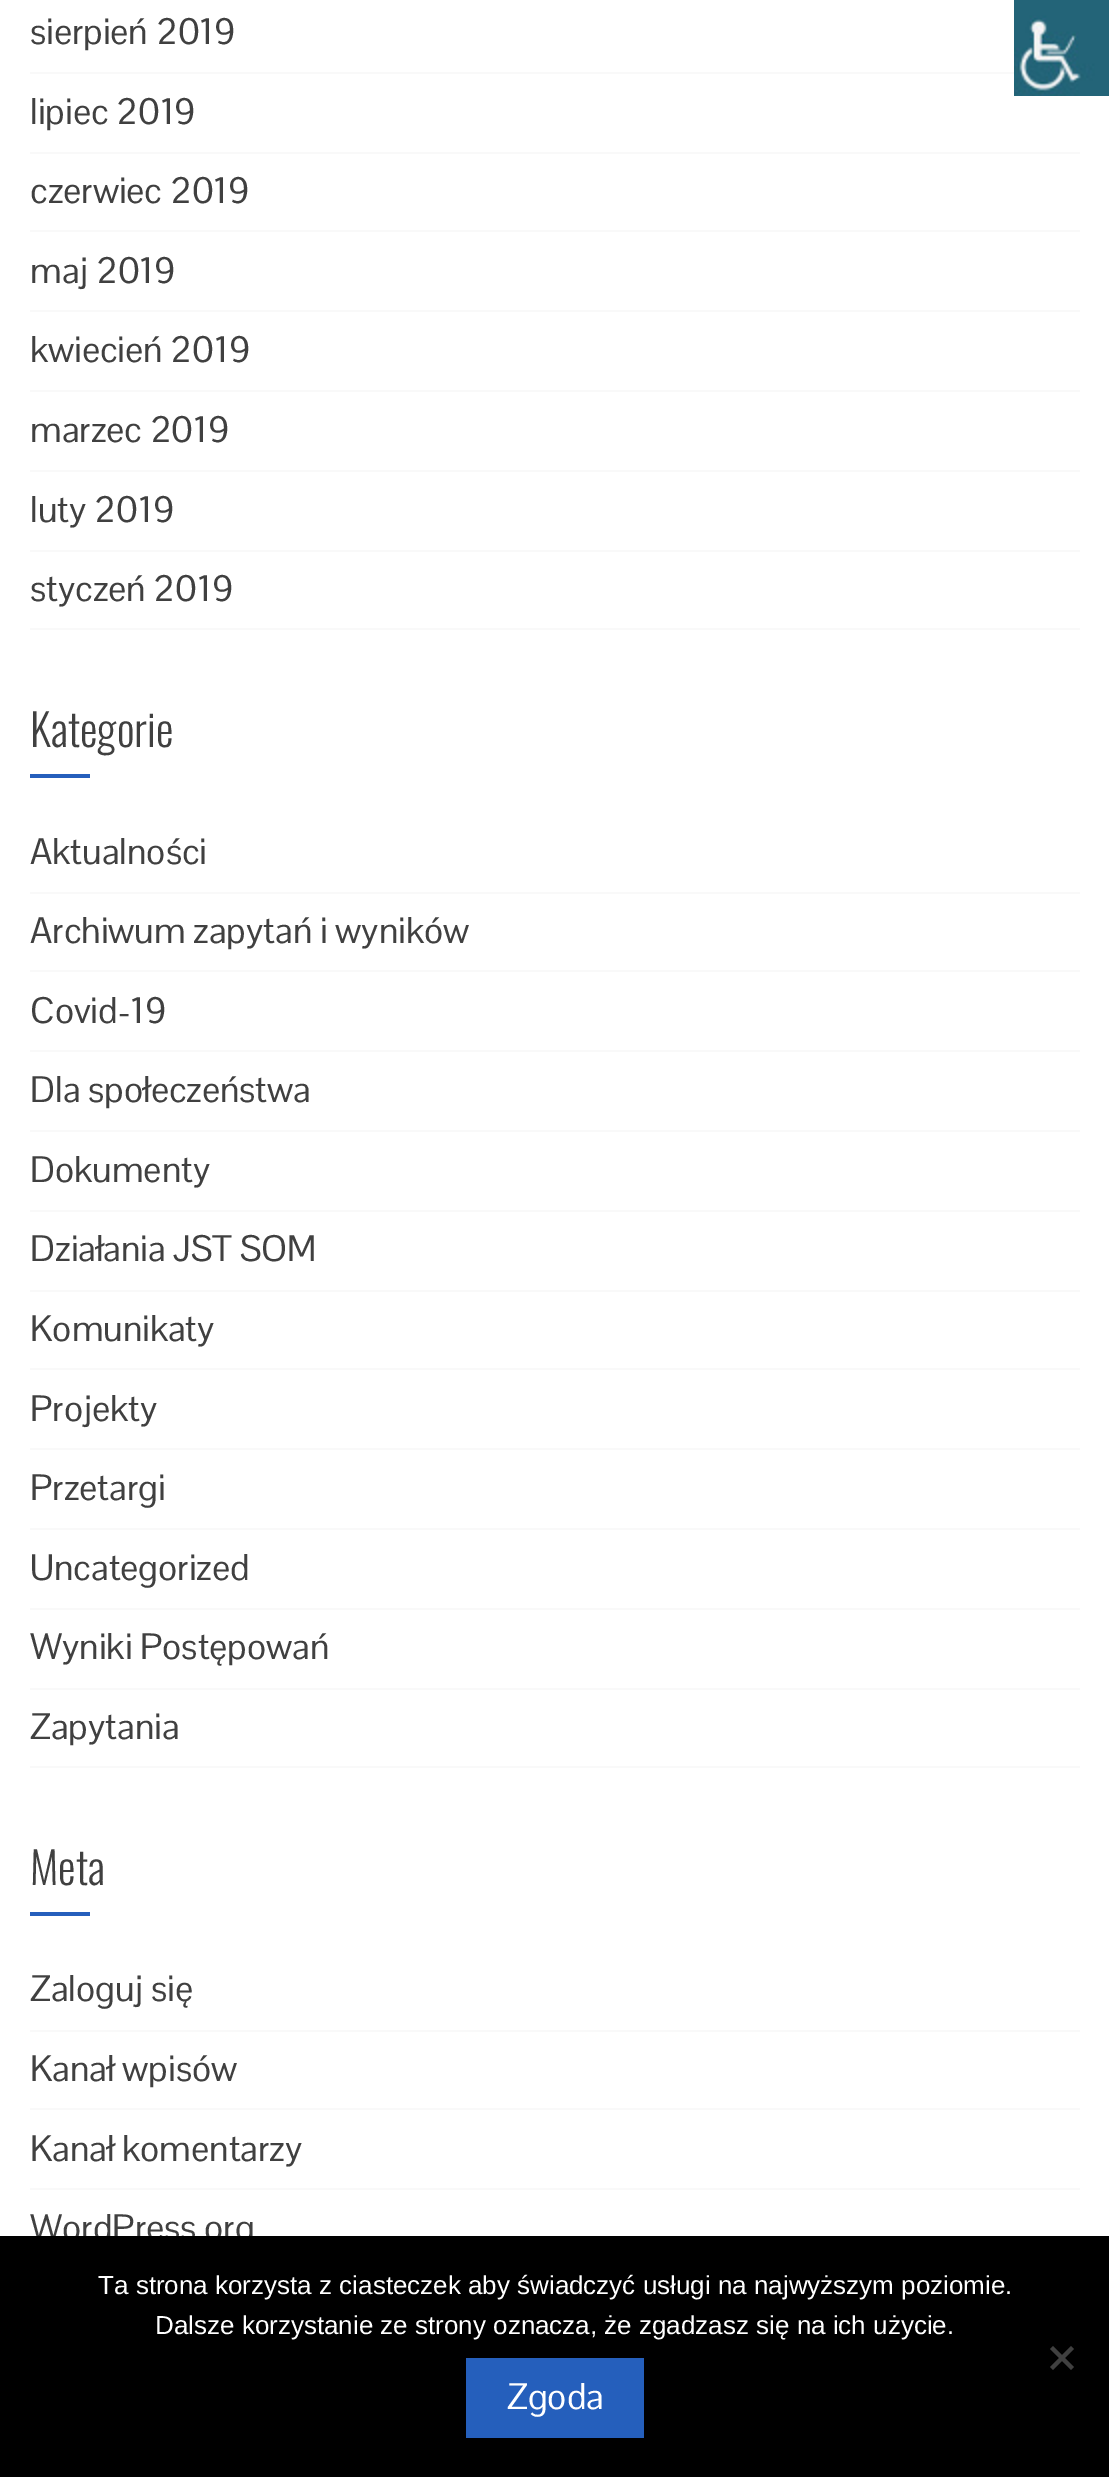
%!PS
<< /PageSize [1109 2477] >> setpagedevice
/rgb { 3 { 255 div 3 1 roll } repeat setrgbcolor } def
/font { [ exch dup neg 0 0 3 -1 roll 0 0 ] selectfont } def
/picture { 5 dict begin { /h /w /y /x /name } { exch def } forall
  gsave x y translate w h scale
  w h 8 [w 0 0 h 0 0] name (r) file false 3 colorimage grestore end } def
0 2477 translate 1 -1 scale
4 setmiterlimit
255 255 255 rgb
0 0 1109 2477 rectfill
[
  [30 72 984 2 249 249 249]
  [30 152 1050 2 249 249 249]
  [30 230 1050 2 249 249 249]
  [30 310 1050 2 249 249 249]
  [30 390 1050 2 249 249 249]
  [30 470 1050 2 249 249 249]
  [30 550 1050 2 249 249 249]
  [30 628 1050 2 249 249 249]
  [30 774 60 4 37 95 188]
  [30 892 1050 2 249 249 249]
  [30 970 1050 2 249 249 249]
  [30 1050 1050 2 249 249 249]
  [30 1130 1050 2 249 249 249]
  [30 1210 1050 2 249 249 249]
  [30 1290 1050 2 249 249 249]
  [30 1368 1050 2 249 249 249]
  [30 1448 1050 2 249 249 249]
  [30 1528 1050 2 249 249 249]
  [30 1608 1050 2 249 249 249]
  [30 1688 1050 2 249 249 249]
  [30 1766 1050 2 249 249 249]
  [30 1912 60 4 37 95 188]
  [30 2030 1050 2 249 249 249]
  [30 2108 1050 2 249 249 249]
  [30 2188 1050 2 249 249 249]
] { aload pop rgb rectfill } forall
(img/1.rgb) 1014 0 95 96 picture
/PontanoSans-Regular 36 font
64 64 64 rgb
[
  [(sierpień 2019) 30 44]
  [(lipiec 2019) 30 124]
  [(czerwiec 2019) 30 203]
  [(maj 2019) 30 283]
  [(kwiecień 2019) 30 362]
  [(marzec 2019) 30 442]
  [(luty 2019) 30 522]
  [(styczeń 2019) 30 601]
] { aload pop moveto show } forall
/Oswald-Light 44 font
30 747 moveto (Kategorie) show
/PontanoSans-Regular 36 font
[
  [(Aktualności) 30 864]
  [(Archiwum zapytań i wyników) 30 943]
  [(Covid-19) 30 1023]
  [(Dla społeczeństwa) 30 1102]
  [(Dokumenty) 30 1182]
  [(Działania JST SOM) 30 1261]
  [(Komunikaty) 30 1341]
  [(Projekty) 30 1421]
  [(Przetargi) 30 1500]
  [(Uncategorized) 30 1580]
  [(Wyniki Postępowań) 30 1659]
  [(Zapytania) 30 1739]
] { aload pop moveto show } forall
/Oswald-Light 44 font
30 1885 moveto (Meta) show
/PontanoSans-Regular 36 font
[
  [(Zaloguj się) 30 2001]
  [(Kanał wpisów) 30 2081]
  [(Kanał komentarzy) 30 2161]
  [(WordPress.org) 30 2240]
] { aload pop moveto show } forall
0 0 0 rgb
0 2236 1109 241 rectfill
/LiberationSans-Regular 26 font
255 255 255 rgb
98 2294 moveto (Ta strona korzysta z ciasteczek aby świadczyć usługi na najwyższym poziomie.) show
155 2334 moveto (Dalsze korzystanie ze strony oznacza, że zgadzasz się na ich użycie.) show
64 64 64 rgb
1071 2346 moveto 1074 2349 lineto 1053 2370 lineto 1050 2367 lineto closepath fill
1050 2349 moveto 1053 2346 lineto 1074 2367 lineto 1071 2370 lineto closepath fill
37 95 188 rgb
466 2358 178 80 rectfill
/PontanoSans-Regular 36 font
255 255 255 rgb
507 2409 moveto (Zgoda) show
showpage
